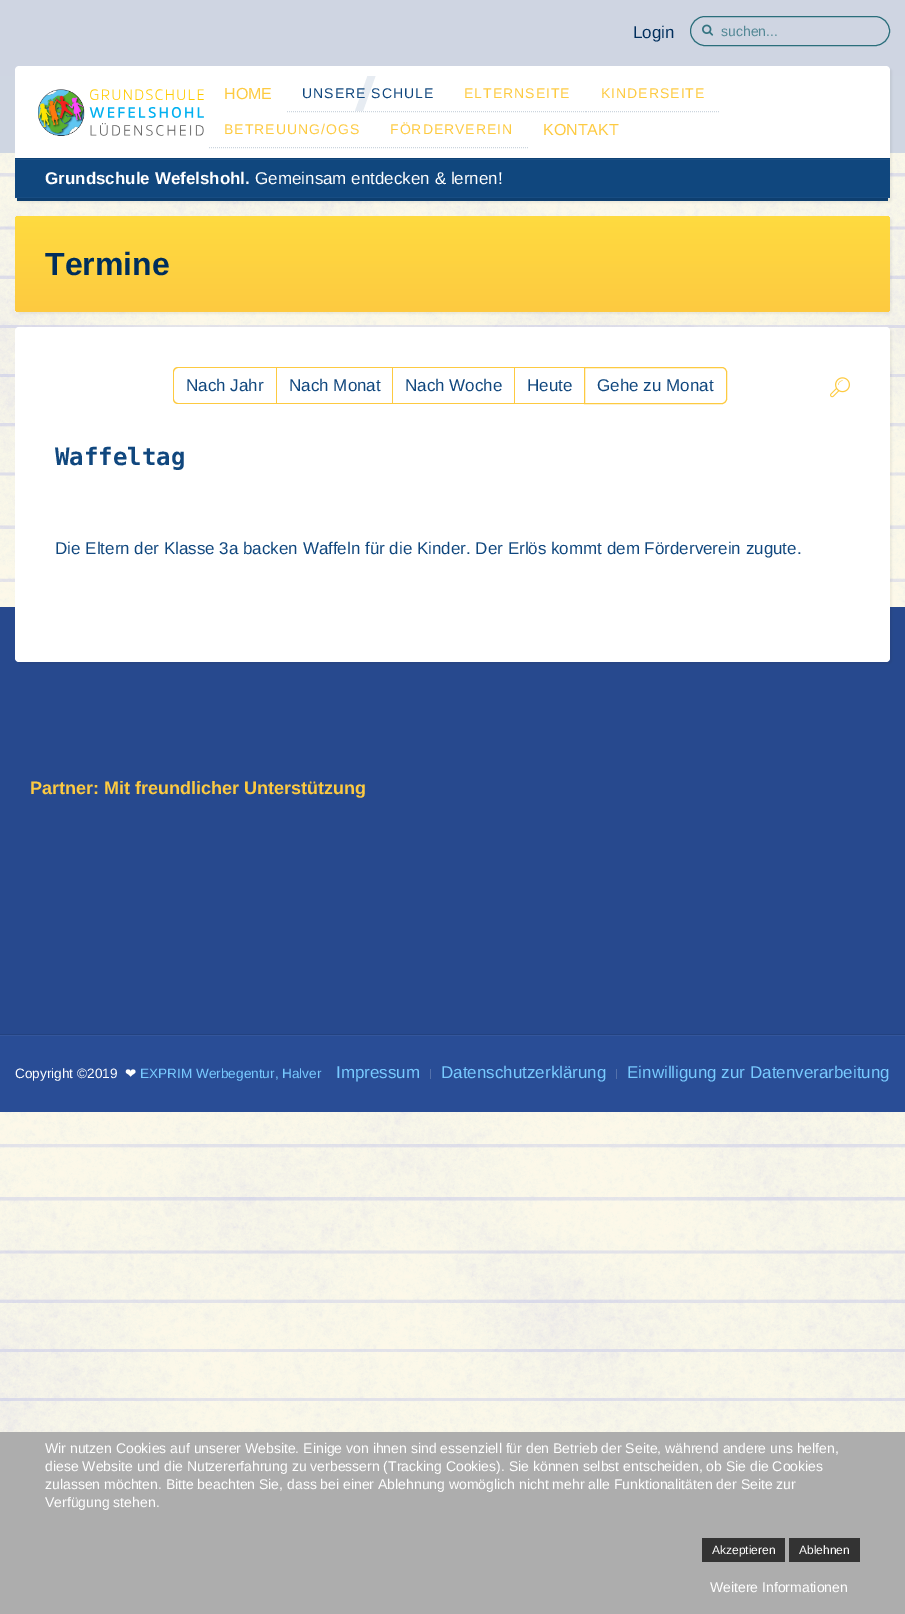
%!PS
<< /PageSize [905 1614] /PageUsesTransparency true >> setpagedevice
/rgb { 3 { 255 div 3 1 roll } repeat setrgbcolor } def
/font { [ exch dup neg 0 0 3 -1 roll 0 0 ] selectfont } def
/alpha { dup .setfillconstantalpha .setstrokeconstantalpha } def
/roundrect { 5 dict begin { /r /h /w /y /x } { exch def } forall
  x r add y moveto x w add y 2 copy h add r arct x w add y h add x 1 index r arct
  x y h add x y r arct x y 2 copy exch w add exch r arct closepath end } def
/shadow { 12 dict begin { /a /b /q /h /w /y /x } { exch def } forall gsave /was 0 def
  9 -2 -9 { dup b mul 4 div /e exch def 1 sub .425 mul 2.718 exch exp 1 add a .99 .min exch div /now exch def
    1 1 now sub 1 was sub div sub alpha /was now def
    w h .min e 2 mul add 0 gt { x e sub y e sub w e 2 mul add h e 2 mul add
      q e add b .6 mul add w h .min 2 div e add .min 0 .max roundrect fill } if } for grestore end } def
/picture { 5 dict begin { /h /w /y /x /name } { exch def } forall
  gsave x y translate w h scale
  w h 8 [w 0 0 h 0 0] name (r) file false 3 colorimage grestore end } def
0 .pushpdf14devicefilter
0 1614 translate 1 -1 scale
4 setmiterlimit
251 244 218 rgb
0 0 905 1614 rectfill
(img/1.rgb) 0 153 905 1279 picture
gsave 0 0 moveto 905 0 lineto 905 153 lineto 0 153 lineto closepath clip newpath
<< /ShadingType 2 /ColorSpace /DeviceRGB /Coords [453 0 453 153] /Extend [true true] /Function << /FunctionType 2 /Domain [0 1] /C0 [0.812 0.835 0.886] /C1 [0.812 0.843 0.886] /N 1 >> >> shfill grestore
42 110 123 rgb
690.5 16.5 199 29 14.5 roundrect stroke
(img/2.rgb) 702 24 12 12 picture
0 0 0 rgb
17 68 875 135 4 1 0.05 shadow
14 63 112 rgb
17 198 871 3 rectfill
255 255 255 rgb
19 66 moveto 886 66 lineto 888 66 890 68 890 70 curveto 890 158 lineto 15 158 lineto 15 70 lineto 15 68 17 66 19 66 curveto closepath fill
(img/3.rgb) 38 89 166 47 picture
204 213 222 rgb
[1 1] 0 setdash
287 111.5 moveto 449 111.5 lineto stroke
0.1 alpha
16 71 126 rgb
367.5 76 moveto 375.5 76 lineto 363 111 lineto 355 111 lineto closepath fill
1 alpha
204 213 222 rgb
449 111.5 moveto 586 111.5 lineto stroke
586 111.5 moveto 720 111.5 lineto stroke
209 147.5 moveto 375 147.5 lineto stroke
375 147.5 moveto 528 147.5 lineto stroke
[
  [15 160 875 37 16 71 126]
  [15 197 875 1 24 77 131]
  [15 159 875 1 28 80 132]
  [15 158 875 1 15 66 117]
] { aload pop rgb rectfill } forall
0 0 0 rgb
17 218 875 96 4 1 0.05 shadow
gsave 15 216 875 96 4 roundrect clip newpath
<< /ShadingType 2 /ColorSpace /DeviceRGB /Coords [453 216 453 312] /Extend [true true] /Function << /FunctionType 2 /Domain [0 1] /C0 [1 0.859 0.247] /C1 [0.992 0.792 0.255] /N 1 >> >> shfill grestore
39 73 142 rgb
0 607 905 427 rectfill
0 0 0 rgb
17 329 875 335 4 1 0.05 shadow
255 255 255 rgb
15 327 875 335 4 roundrect fill
253 202 65 rgb
178 367 moveto 276 367 lineto 276 404 lineto 178 404 lineto 175 404 173 402 173 399 curveto 173 372 lineto 173 369 175 367 178 367 curveto closepath 178 368 moveto 276 368 lineto 276 403 lineto 178 403 lineto 176 403 174 401 174 399 curveto 174 372 lineto 174 370 176 368 178 368 curveto closepath eofill
[
  [276 367 309 1 253 202 65]
  [276 403 309 1 253 202 65]
  [276 367 1 37 253 202 65]
  [392 367 1 37 253 202 65]
  [514 367 1 37 253 202 65]
] { aload pop rgb rectfill } forall
[] 0 setdash
584.5 367.5 moveto 722 367.5 lineto 724.5 367.5 726.5 369.5 726.5 372 curveto 726.5 399 lineto 726.5 401.5 724.5 403.5 722 403.5 curveto 584.5 403.5 lineto closepath stroke
(img/4.rgb) 830 377 20 21 picture
[
  [0 1034 905 1 35 66 128]
  [0 1036 905 76 41 77 150]
  [0 1035 905 1 52 86 155]
  [430 1069 1 10 84 113 171]
  [616 1069 1 10 84 113 171]
  [0 1432 905 182 173 173 173]
  [702 1538 83 24 51 51 51]
  [789 1538 71 24 51 51 51]
] { aload pop rgb rectfill } forall
/LiberationSans-Regular 17 font
0 46 92 rgb
633 38 moveto (Login) show
/LiberationSans-Regular 14 font
83 136 149 rgb
721 36 moveto (suchen...) show
/LiberationSans-Regular 16 font
253 202 65 rgb
224 99 moveto (HOME) show
/LiberationSans-Regular 14 font
16 71 126 rgb
302 98 moveto 1 0 (UNSERE SCHULE) ashow
253 202 65 rgb
464 98 moveto 1 0 (ELTERNSEITE) ashow
601 98 moveto 1 0 (KINDERSEITE) ashow
224 134 moveto 1 0 (BETREUUNG/OGS) ashow
390 134 moveto 1 0 (FÖRDERVEREIN) ashow
/LiberationSans-Regular 16 font
543 135 moveto (KONTAKT) show
/LiberationSans-Bold 17 font
255 255 255 rgb
45 184 moveto (Grundschule Wefelshohl.) show
/LiberationSans-Regular 17 font
255 184 moveto (Gemeinsam entdecken & lernen!) show
/LiberationSans-Bold 32 font
0 46 92 rgb
45 275 moveto (Termine) show
/LiberationSans-Regular 17 font
16 71 126 rgb
[
  [(Nach Jahr) 186 391]
  [(Nach Monat) 289 391]
  [(Nach Woche) 405 391]
  [(Heute) 527 391]
  [(Gehe zu Monat) 597 391]
] { aload pop moveto show } forall
/DejaVuSansMono-Bold 24 font
55 465 moveto (Waffeltag) show
/LiberationSans-Regular 17 font
55 554 moveto (Die Eltern der Klasse 3a backen Waffeln für die Kinder. Der Erlös kommt dem Förderverein zugute.) show
/LiberationSans-Bold 18 font
253 202 65 rgb
30 794 moveto (Partner: Mit freundlicher Unterstützung) show
/LiberationSans-Regular 13.6 font
255 255 255 rgb
15 1078 moveto (Copyright ©2019) show
/DejaVuSans-Regular 13.6 font
125 1078 moveto (❤) show
/LiberationSans-Regular 13.6 font
120 202 255 rgb
140 1078 moveto (EXPRIM Werbegentur, Halver) show
/LiberationSans-Regular 17 font
[
  [(Impressum) 336 1078]
  [(Datenschutzerklärung) 441 1078]
  [(Einwilligung zur Datenverarbeitung) 627 1078]
] { aload pop moveto show } forall
/LiberationSans-Regular 14 font
255 255 255 rgb
[
  [(Wir nutzen Cookies auf unserer Website. Einige von ihnen sind essenziell für den Betrieb der Seite, während andere uns helfen,) 45 1453]
  [(diese Website und die Nutzererfahrung zu verbessern \(Tracking Cookies\). Sie können selbst entscheiden, ob Sie die Cookies) 45 1471]
  [(zulassen möchten. Bitte beachten Sie, dass bei einer Ablehnung womöglich nicht mehr alle Funktionalitäten der Seite zur) 45 1489]
  [(Verfügung stehen.) 45 1507]
] { aload pop moveto show } forall
/LiberationSans-Regular 12 font
712 1554 moveto (Akzeptieren) show
799 1554 moveto (Ablehnen) show
/LiberationSans-Regular 14 font
710 1592 moveto (Weitere Informationen) show
.poppdf14devicefilter showpage
